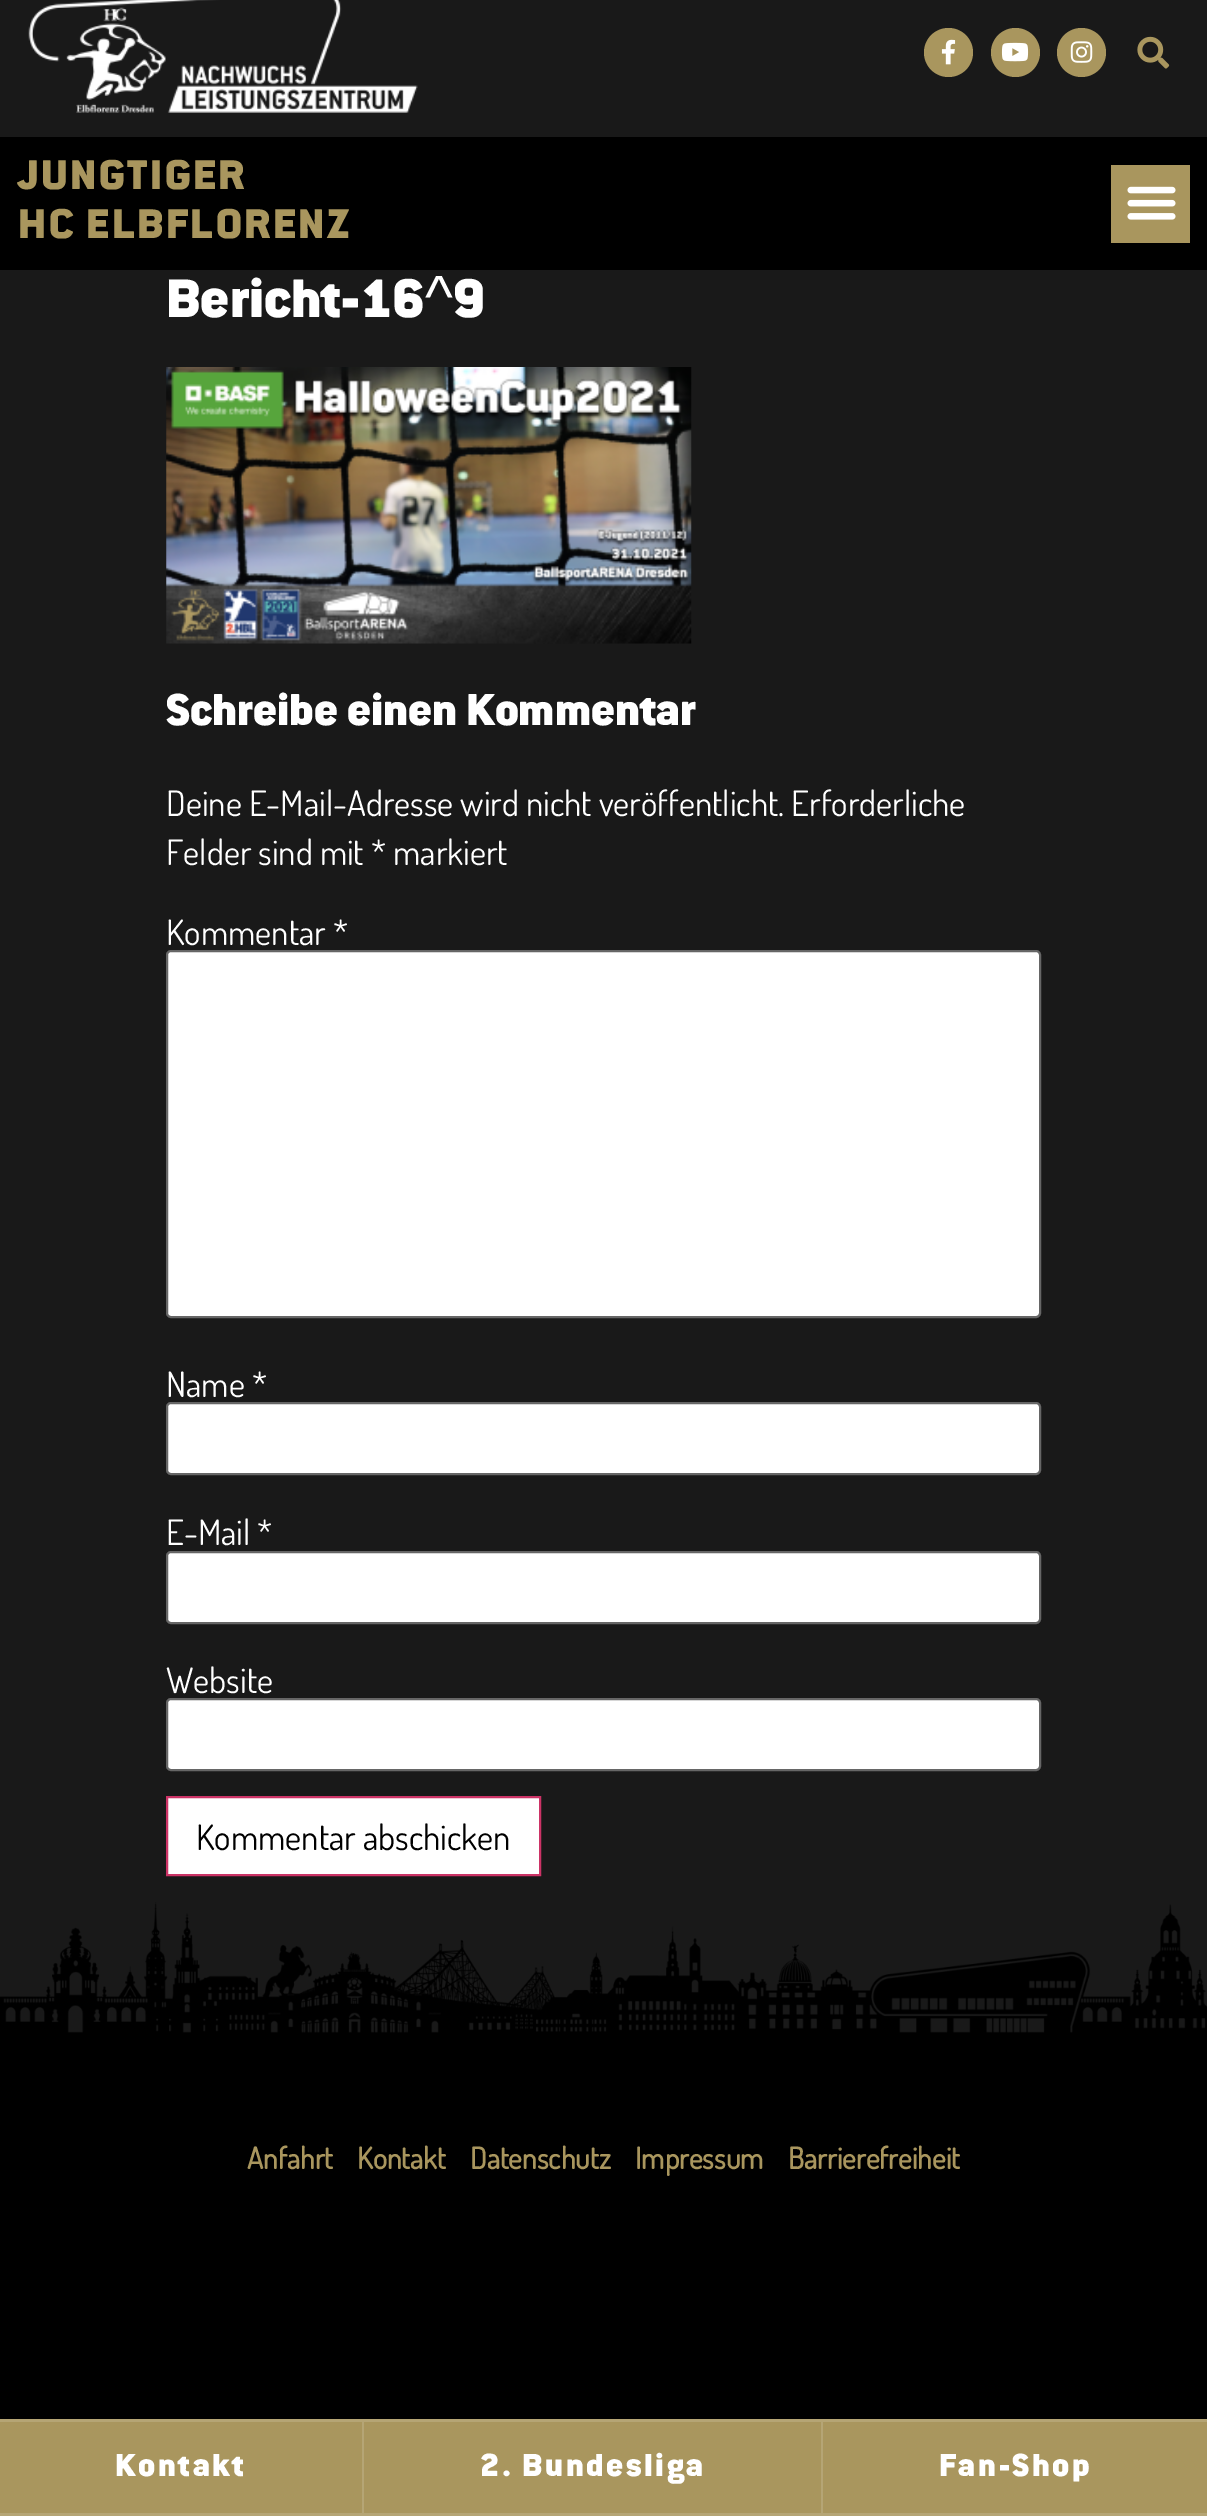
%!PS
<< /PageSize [1207 2516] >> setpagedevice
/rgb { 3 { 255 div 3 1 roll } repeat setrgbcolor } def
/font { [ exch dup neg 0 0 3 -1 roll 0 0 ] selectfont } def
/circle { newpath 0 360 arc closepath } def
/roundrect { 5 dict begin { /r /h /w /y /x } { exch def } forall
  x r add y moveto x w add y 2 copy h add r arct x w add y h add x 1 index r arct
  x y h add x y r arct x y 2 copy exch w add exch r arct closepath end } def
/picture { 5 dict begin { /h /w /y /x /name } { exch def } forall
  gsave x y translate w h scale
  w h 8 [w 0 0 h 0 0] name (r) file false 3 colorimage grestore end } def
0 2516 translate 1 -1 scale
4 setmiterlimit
25 25 25 rgb
0 0 1207 2516 rectfill
(img/1.rgb) 28 0 390 113 picture
169 150 94 rgb
948.5 52.5 24.5 circle fill
(img/2.rgb) 941 39 15 26 picture
1015.5 52.5 24.5 circle fill
(img/3.rgb) 1001 42 28 20 picture
1081.5 52.5 24.5 circle fill
(img/4.rgb) 1070 41 23 22 picture
(img/5.rgb) 1137 36 33 33 picture
0 0 0 rgb
0 137 1207 133 rectfill
169 150 94 rgb
1111 165 79 78 rectfill
(img/6.rgb) 1127 186 49 34 picture
(img/7.rgb) 166 367 526 277 picture
255 255 255 rgb
167 951 873 366 4 roundrect gsave fill grestore
102 102 102 rgb
2 setlinewidth
stroke
255 255 255 rgb
167 1403 873 71 4 roundrect gsave fill grestore
102 102 102 rgb
stroke
255 255 255 rgb
167 1552 873 71 4 roundrect gsave fill grestore
102 102 102 rgb
stroke
255 255 255 rgb
167 1699 873 71 4 roundrect gsave fill grestore
102 102 102 rgb
stroke
255 255 255 rgb
167 1797 moveto 540 1797 lineto 540 1875 lineto 167 1875 lineto closepath gsave fill grestore
204 51 102 rgb
stroke
(img/8.rgb) 0 1902 1207 224 picture
[
  [0 2126 1207 293 0 0 0]
  [0 2419 1207 3 181 165 117]
  [0 2513 1207 3 181 165 117]
  [0 2422 1207 91 169 150 94]
  [362 2422 2 91 181 165 117]
  [821 2422 2 91 181 165 117]
] { aload pop rgb rectfill } forall
/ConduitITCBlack-Black 45.5 font
169 150 94 rgb
18 189 moveto 2.6 0 (JUNGTIGER) ashow
18 238 moveto 2.6 0 (HC ELBFLORENZ) ashow
/ConduitITCBlack-Black 59.5 font
255 255 255 rgb
166 317 moveto (Bericht-16) show
/LiberationSans-Regular 59.5 font
425 317 moveto (^) show
/ConduitITCBlack-Black 59.5 font
453 317 moveto (9) show
/ConduitITCBlack-Black 49 font
166 725 moveto (Schreibe einen Kommentar) show
/Dosis-Regular 35 font
[
  [(Deine E-Mail-Adresse wird nicht veröffentlicht. Erforderliche) 166 816]
  [(Felder sind mit * markiert) 166 865]
  [(Kommentar *) 166 945]
  [(Name *) 166 1397]
  [(E-Mail *) 166 1545]
  [(Website) 166 1693]
] { aload pop moveto show } forall
0 0 0 rgb
196 1850 moveto (Kommentar abschicken) show
/Dosis-Bold 29.75 font
169 150 94 rgb
[
  [(Anfahrt) 247 2169]
  [(Kontakt) 357 2169]
  [(Datenschutz) 470 2169]
  [(Impressum) 635 2169]
  [(Barrierefreiheit) 788 2169]
] { aload pop moveto show } forall
/ConduitITCBlack-Black 35 font
255 255 255 rgb
115 2476 moveto 2.6 0 (Kontakt) ashow
480 2476 moveto 2.6 0 (2. Bundesliga) ashow
939 2476 moveto 2.6 0 (Fan-Shop) ashow
showpage
